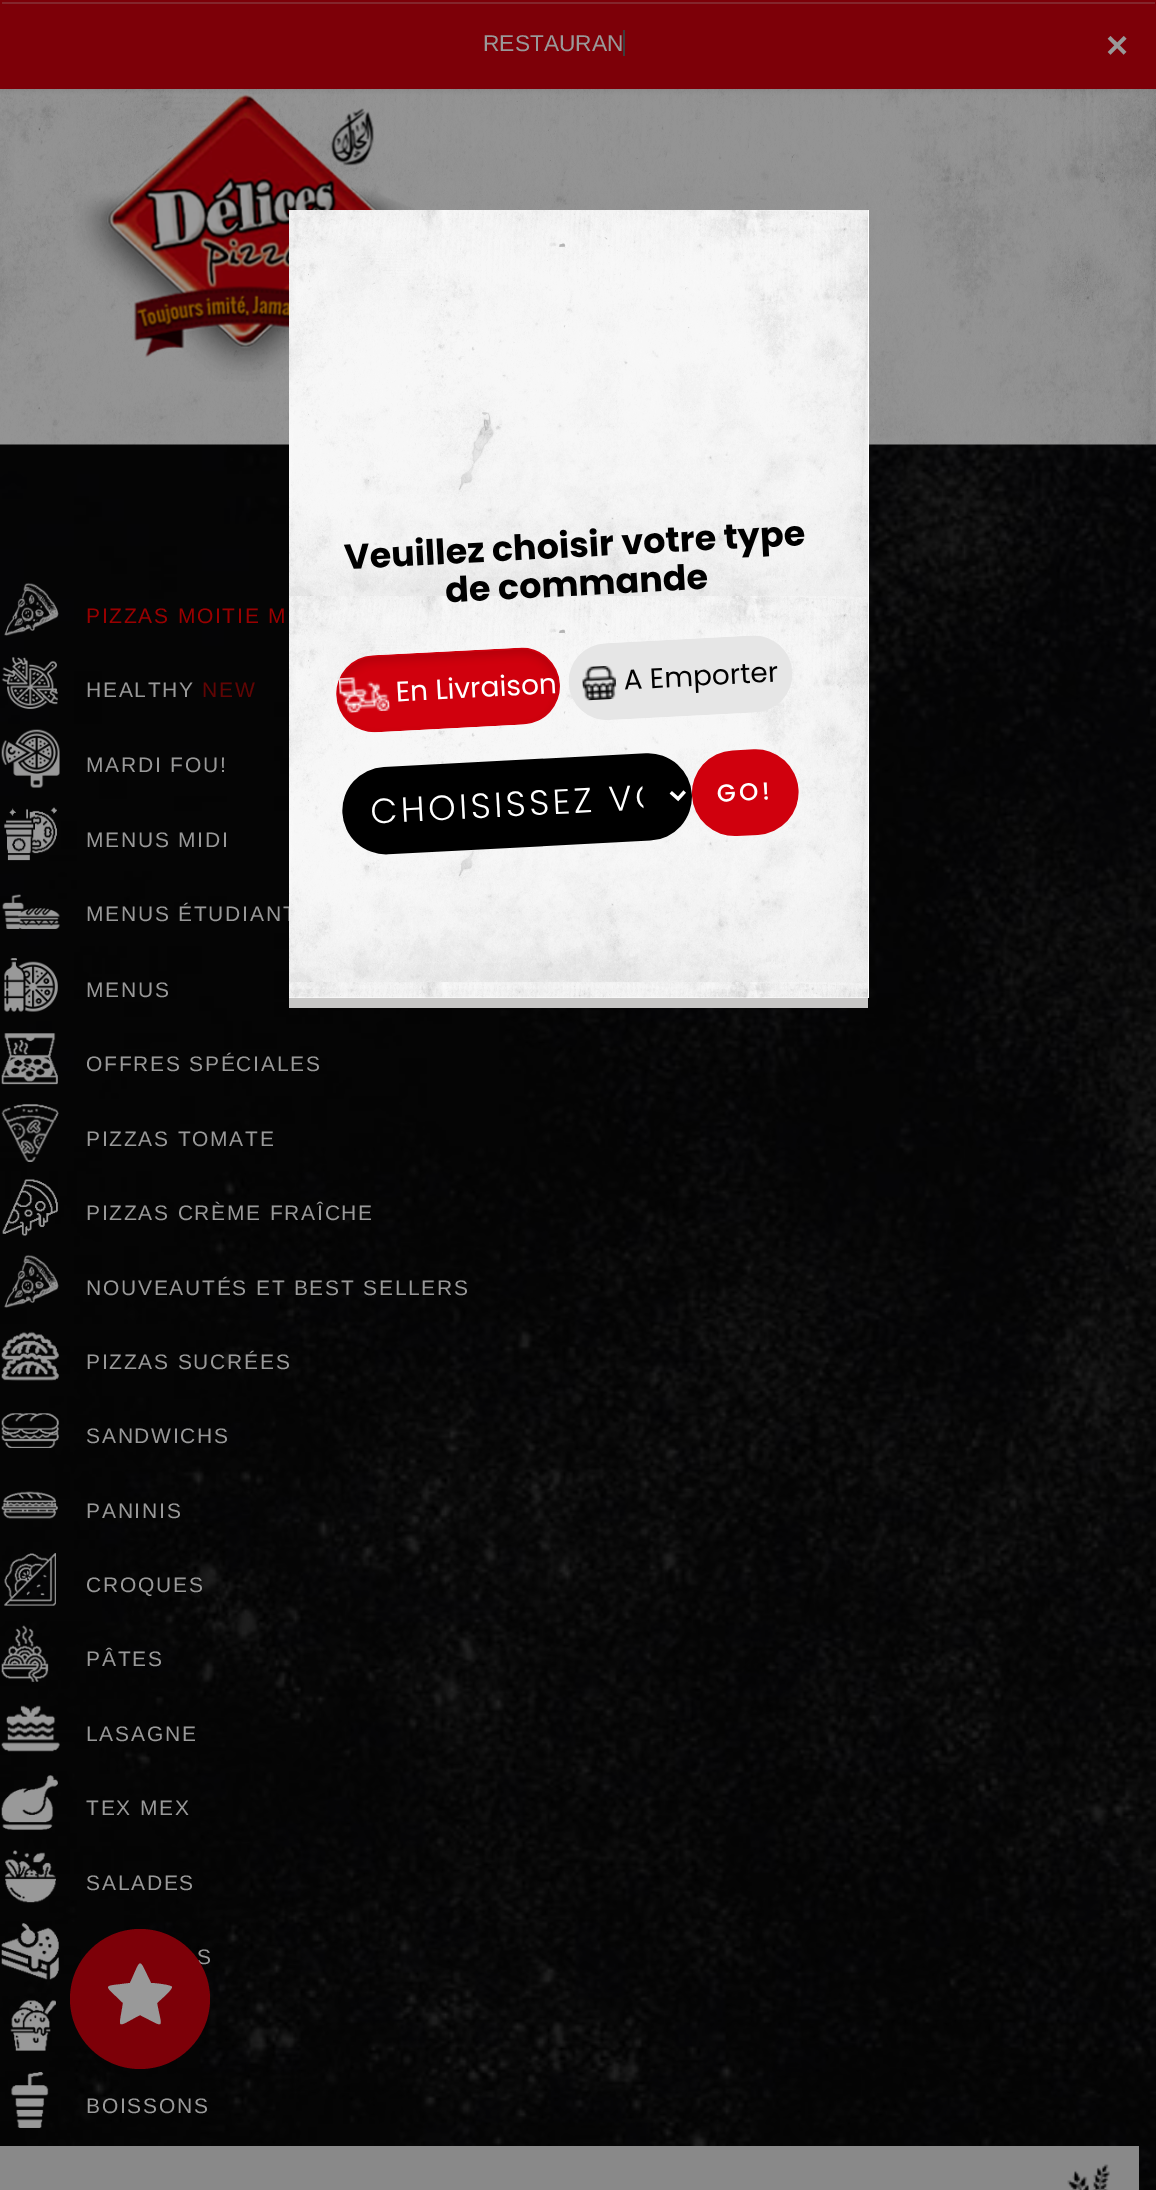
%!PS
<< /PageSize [1156 2190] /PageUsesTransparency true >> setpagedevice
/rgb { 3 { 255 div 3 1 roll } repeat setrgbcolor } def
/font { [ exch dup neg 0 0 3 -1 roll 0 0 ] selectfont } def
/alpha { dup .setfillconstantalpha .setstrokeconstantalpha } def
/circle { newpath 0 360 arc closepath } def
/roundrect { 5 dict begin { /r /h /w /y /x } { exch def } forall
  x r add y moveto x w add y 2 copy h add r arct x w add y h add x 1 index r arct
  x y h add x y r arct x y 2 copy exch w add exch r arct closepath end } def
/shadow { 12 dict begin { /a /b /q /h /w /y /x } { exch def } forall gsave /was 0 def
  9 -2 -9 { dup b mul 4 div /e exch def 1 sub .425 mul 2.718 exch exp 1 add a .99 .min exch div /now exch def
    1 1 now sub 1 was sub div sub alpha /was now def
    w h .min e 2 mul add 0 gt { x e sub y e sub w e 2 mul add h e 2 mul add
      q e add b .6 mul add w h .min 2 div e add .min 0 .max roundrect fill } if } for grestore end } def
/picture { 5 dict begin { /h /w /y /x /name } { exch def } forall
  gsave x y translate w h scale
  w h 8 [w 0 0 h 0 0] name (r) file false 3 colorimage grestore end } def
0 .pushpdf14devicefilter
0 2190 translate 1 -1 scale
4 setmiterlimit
255 255 255 rgb
0 0 1156 2190 rectfill
(img/1.rgb) 0 89 1156 356 picture
0 0 0 rgb
0 2 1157 89 0 2 0.05 shadow
[
  [0 0 1156 89 125 0 8]
  [2 2 1153 2 132 38 44]
  [623 30 2 26 61 61 61]
] { aload pop rgb rectfill } forall
(img/2.rgb) 73 94 342 288 picture
(img/3.rgb) 0 444 1156 1746 picture
(img/4.rgb) 4 582 55 54 picture
(img/5.rgb) 1 657 57 52 picture
(img/6.rgb) 1 729 59 59 picture
(img/7.rgb) 4 807 53 54 picture
(img/8.rgb) 2 894 58 35 picture
(img/9.rgb) 4 958 54 54 picture
(img/10.rgb) 1 1033 57 52 picture
(img/11.rgb) 1 1104 58 58 picture
(img/12.rgb) 2 1179 56 57 picture
(img/13.rgb) 4 1254 55 54 picture
(img/14.rgb) 1 1331 58 50 picture
(img/15.rgb) 1 1413 58 35 picture
(img/16.rgb) 1 1491 57 28 picture
(img/17.rgb) 4 1553 52 53 picture
(img/18.rgb) 1 1625 48 57 picture
(img/19.rgb) 1 1705 59 47 picture
(img/20.rgb) 1 1775 57 55 picture
(img/21.rgb) 5 1850 51 53 picture
(img/22.rgb) 1 1923 58 57 picture
(img/23.rgb) 10 2000 46 51 picture
(img/24.rgb) 11 2072 38 56 picture
137 137 137 rgb
0 2146 1139 44 rectfill
(img/25.rgb) 1067 2164 43 26 picture
199 198 197 rgb
289 998 579 10 rectfill
/LiberationSans-Regular 22.75 font
153 153 153 rgb
483 51 moveto (RESTAURAN) show
/LiberationSans-Bold 38 font
1106 58 moveto (×) show
/LiberationSans-Regular 21 font
153 0 0 rgb
86 623 moveto 1.75 0 (PIZZAS MOITIE M) ashow
153 153 153 rgb
86 697 moveto 1.75 0 (HEALTHY) ashow
97 5 4 rgb
202 697 moveto 1.75 0 (NEW) ashow
153 153 153 rgb
86 772 moveto 1.75 0 (MARDI FOU!) ashow
86 847 moveto 1.75 0 (MENUS MIDI) ashow
86 921 moveto 1.75 0 (MENUS ÉTUDIANT) ashow
86 997 moveto 1.75 0 (MENUS) ashow
86 1071 moveto 1.75 0 (OFFRES SPÉCIALES) ashow
86 1146 moveto 1.75 0 (PIZZAS TOMATE) ashow
86 1220 moveto 1.75 0 (PIZZAS CRÈME FRAÎCHE) ashow
86 1295 moveto 1.75 0 (NOUVEAUTÉS ET BEST SELLERS) ashow
86 1369 moveto 1.75 0 (PIZZAS SUCRÉES) ashow
86 1443 moveto 1.75 0 (SANDWICHS) ashow
86 1518 moveto 1.75 0 (PANINIS) ashow
86 1592 moveto 1.75 0 (CROQUES) ashow
86 1666 moveto 1.75 0 (PÂTES) ashow
86 1741 moveto 1.75 0 (LASAGNE) ashow
86 1815 moveto 1.75 0 (TEX MEX) ashow
86 1890 moveto 1.75 0 (SALADES) ashow
197 1964 moveto 1.75 0 (S) ashow
86 2113 moveto 1.75 0 (BOISSONS) ashow
125 0 8 rgb
140 1999 70 circle fill
153 153 153 rgb
172 1987 moveto 172 1990 159 2001 157 2003 curveto 162 2030 166 2028 140 2015 curveto 115 2028 119 2030 123 2003 curveto 103 1983 101 1987 130 1983 curveto 142 1957 138 1957 151 1983 curveto 154 1983 172 1985 172 1987 curveto closepath fill
(img/26.rgb) 289 210 580 788 picture
.poppdf14devicefilter showpage
